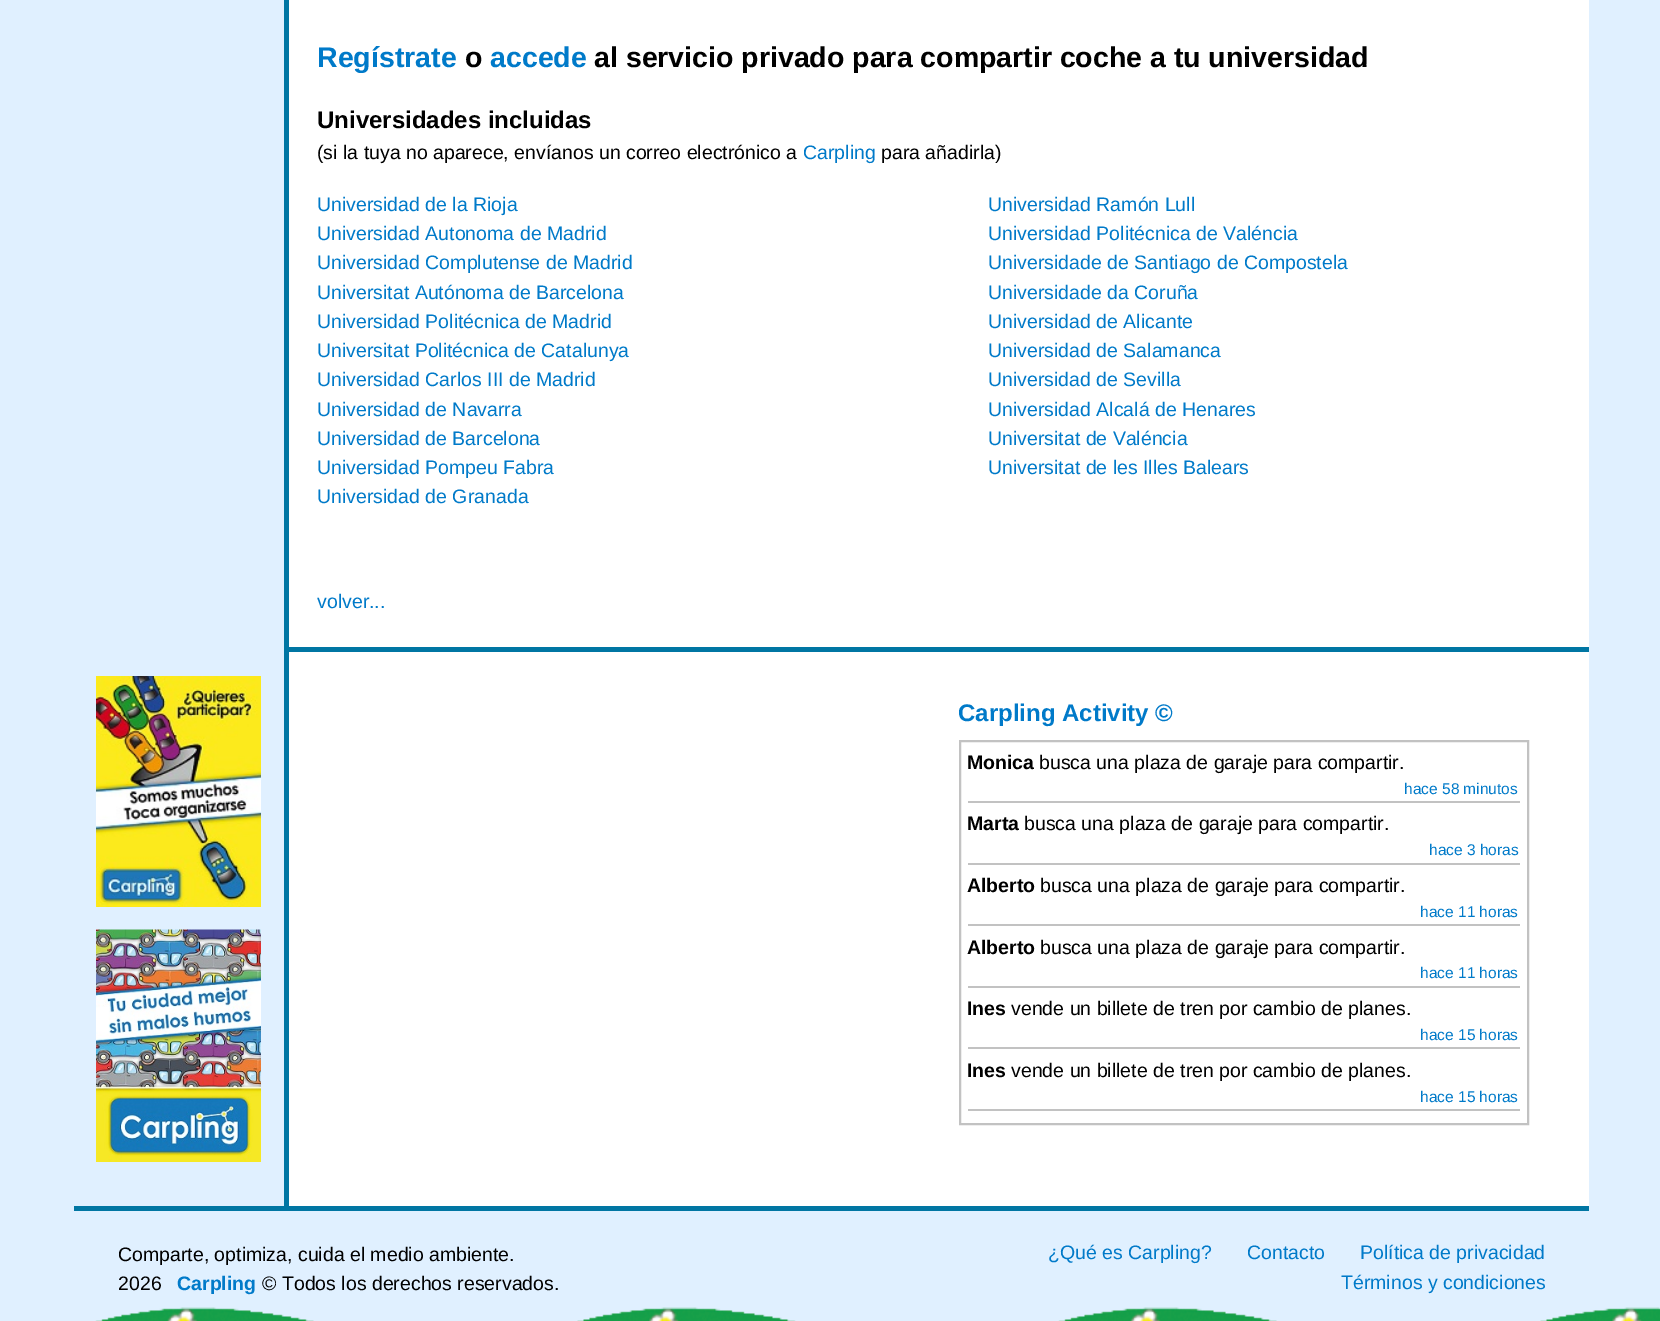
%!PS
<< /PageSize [1660 1321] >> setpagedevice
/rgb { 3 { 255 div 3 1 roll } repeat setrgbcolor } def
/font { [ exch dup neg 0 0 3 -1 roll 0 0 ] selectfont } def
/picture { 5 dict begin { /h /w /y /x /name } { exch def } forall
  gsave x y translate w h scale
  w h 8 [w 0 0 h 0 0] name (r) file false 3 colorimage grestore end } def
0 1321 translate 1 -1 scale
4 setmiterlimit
224 240 255 rgb
0 0 1660 1321 rectfill
255 255 255 rgb
289 0 1300 647 rectfill
(img/1.rgb) 96 676 165 231 picture
(img/2.rgb) 96 929 165 233 picture
[
  [289 652 1300 554 255 255 255]
  [284 647 1305 5 0 118 163]
  [284 0 5 1206 0 118 163]
] { aload pop rgb rectfill } forall
194 194 194 rgb
2 setlinewidth
960 741 568 383 rectstroke
[
  [968 801 552 2 194 194 194]
  [968 863 552 2 194 194 194]
  [968 924 552 2 194 194 194]
  [968 986 552 2 194 194 194]
  [968 1047 552 2 194 194 194]
  [968 1109 552 2 194 194 194]
] { aload pop rgb rectfill } forall
(img/3.rgb) 95 1307 1565 14 picture
0 118 163 rgb
74 1206 1515 5 rectfill
/LiberationSans-Bold 28.5 font
0 122 201 rgb
317 67 moveto (Regístrate) show
0 0 0 rgb
465 67 moveto (o) show
0 122 201 rgb
490 67 moveto (accede) show
0 0 0 rgb
594 67 moveto (al servicio privado para compartir coche a tu universidad) show
/LiberationSans-Bold 24 font
317 128 moveto (Universidades incluidas) show
/LiberationSans-Regular 19.5 font
317 159 moveto (\(si la tuya no aparece, envíanos un correo electrónico a) show
0 122 201 rgb
803 159 moveto (Carpling) show
0 0 0 rgb
881 159 moveto (para añadirla\)) show
0 122 201 rgb
[
  [(Universidad de la Rioja) 317 211]
  [(Universidad Autonoma de Madrid) 317 240]
  [(Universidad Complutense de Madrid) 317 269]
  [(Universitat Autónoma de Barcelona) 317 299]
  [(Universidad Politécnica de Madrid) 317 328]
  [(Universitat Politécnica de Catalunya) 317 357]
  [(Universidad Carlos III de Madrid) 317 386]
  [(Universidad de Navarra) 317 416]
  [(Universidad de Barcelona) 317 445]
  [(Universidad Pompeu Fabra) 317 474]
  [(Universidad de Granada) 317 503]
  [(Universidad Ramón Lull) 988 211]
  [(Universidad Politécnica de Valéncia) 988 240]
  [(Universidade de Santiago de Compostela) 988 269]
  [(Universidade da Coruña) 988 299]
  [(Universidad de Alicante) 988 328]
  [(Universidad de Salamanca) 988 357]
  [(Universidad de Sevilla) 988 386]
  [(Universidad Alcalá de Henares) 988 416]
  [(Universitat de Valéncia) 988 445]
  [(Universitat de les Illes Balears) 988 474]
  [(volver...) 317 608]
] { aload pop moveto show } forall
/LiberationSans-Bold 24 font
958 721 moveto (Carpling Activity ©) show
/LiberationSans-Bold 19.5 font
0 0 0 rgb
967 769 moveto (Monica) show
/LiberationSans-Regular 19.5 font
1039 769 moveto (busca una plaza de garaje para compartir.) show
/LiberationSans-Regular 15.5 font
0 122 201 rgb
1404 794 moveto (hace 58 minutos) show
/LiberationSans-Bold 19.5 font
0 0 0 rgb
967 830 moveto (Marta) show
/LiberationSans-Regular 19.5 font
1024 830 moveto (busca una plaza de garaje para compartir.) show
/LiberationSans-Regular 15.5 font
0 122 201 rgb
1429 855 moveto (hace 3 horas) show
/LiberationSans-Bold 19.5 font
0 0 0 rgb
967 892 moveto (Alberto) show
/LiberationSans-Regular 19.5 font
1040 892 moveto (busca una plaza de garaje para compartir.) show
/LiberationSans-Regular 15.5 font
0 122 201 rgb
1420 917 moveto (hace 11 horas) show
/LiberationSans-Bold 19.5 font
0 0 0 rgb
967 954 moveto (Alberto) show
/LiberationSans-Regular 19.5 font
1040 954 moveto (busca una plaza de garaje para compartir.) show
/LiberationSans-Regular 15.5 font
0 122 201 rgb
1420 978 moveto (hace 11 horas) show
/LiberationSans-Bold 19.5 font
0 0 0 rgb
967 1015 moveto (Ines) show
/LiberationSans-Regular 19.5 font
1011 1015 moveto (vende un billete de tren por cambio de planes.) show
/LiberationSans-Regular 15.5 font
0 122 201 rgb
1420 1040 moveto (hace 15 horas) show
/LiberationSans-Bold 19.5 font
0 0 0 rgb
967 1077 moveto (Ines) show
/LiberationSans-Regular 19.5 font
1011 1077 moveto (vende un billete de tren por cambio de planes.) show
/LiberationSans-Regular 15.5 font
0 122 201 rgb
1420 1102 moveto (hace 15 horas) show
/LiberationSans-Regular 19.5 font
0 0 0 rgb
118 1261 moveto (Comparte, optimiza, cuida el medio ambiente.) show
118 1290 moveto (2026) show
/LiberationSans-Bold 19.5 font
0 122 201 rgb
177 1290 moveto (Carpling) show
/LiberationSans-Regular 19.5 font
0 0 0 rgb
262 1290 moveto (© Todos los derechos reservados.) show
0 122 201 rgb
[
  [(¿Qué es Carpling?) 1048 1259]
  [(Contacto) 1247 1259]
  [(Política de privacidad) 1360 1259]
  [(Términos y condiciones) 1341 1289]
] { aload pop moveto show } forall
showpage
